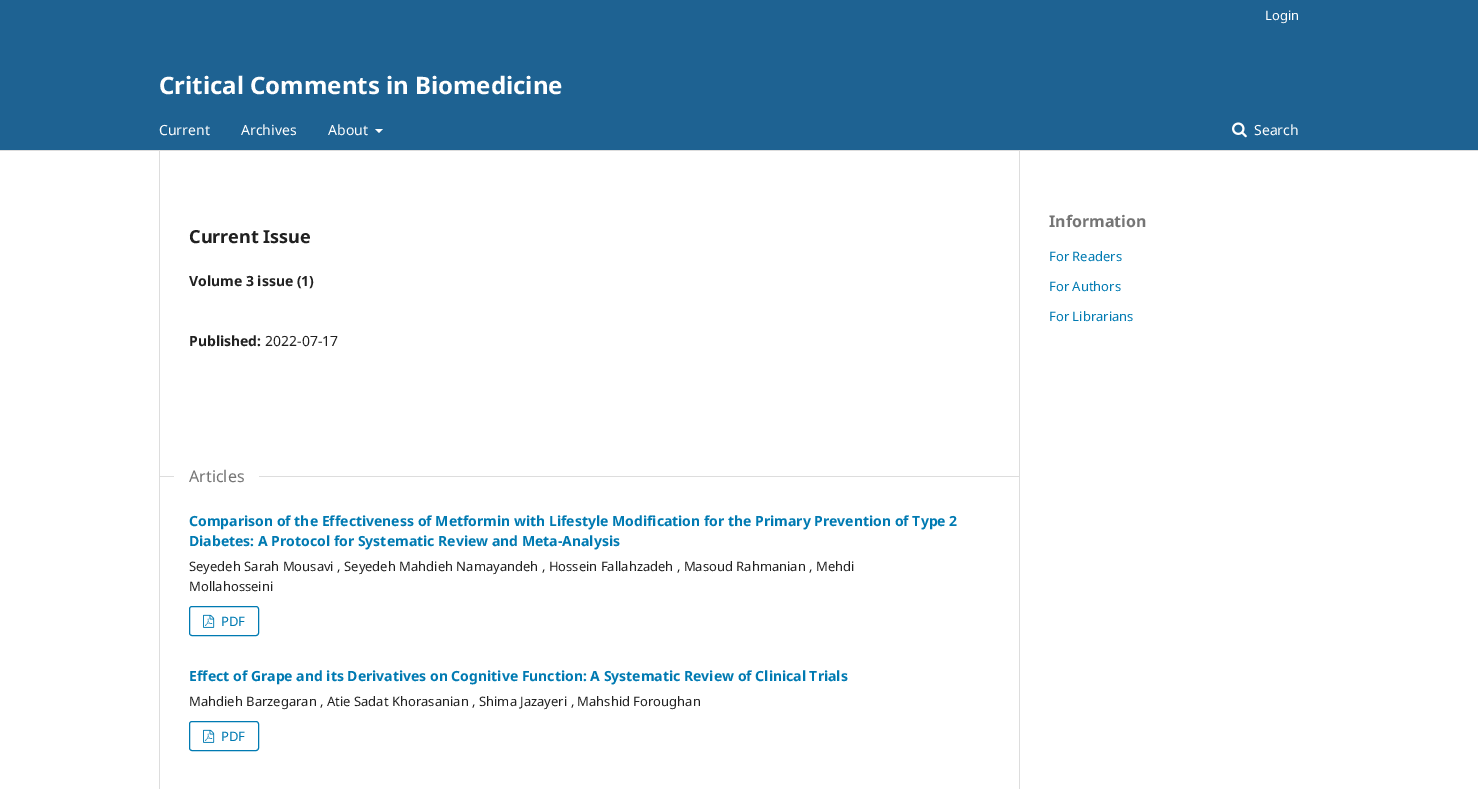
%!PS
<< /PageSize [1478 789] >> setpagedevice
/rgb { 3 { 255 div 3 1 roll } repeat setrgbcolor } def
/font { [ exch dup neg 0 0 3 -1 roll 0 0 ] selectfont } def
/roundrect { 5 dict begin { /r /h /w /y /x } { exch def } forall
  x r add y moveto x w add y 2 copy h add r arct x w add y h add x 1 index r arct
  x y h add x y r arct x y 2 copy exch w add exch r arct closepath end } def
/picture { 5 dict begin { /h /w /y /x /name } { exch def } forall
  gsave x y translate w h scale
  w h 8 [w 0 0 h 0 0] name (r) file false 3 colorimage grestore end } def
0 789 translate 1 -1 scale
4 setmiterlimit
255 255 255 rgb
0 0 1478 789 rectfill
30 98 146 rgb
0 0 1478 150 rectfill
221 221 221 rgb
0 150 1478 1 rectfill
255 255 255 rgb
375 129 moveto 383 129 lineto 379 133 lineto closepath fill
(img/1.rgb) 1232 122 15 16 picture
[
  [159 151 1 638 221 221 221]
  [159 476 860 1 221 221 221]
  [174 476 85 1 255 255 255]
] { aload pop rgb rectfill } forall
0 122 178 rgb
189.5 606.5 69 29 2.5 roundrect stroke
(img/2.rgb) 203 614 12 14 picture
189.5 721.5 69 29 2.5 roundrect stroke
(img/2.rgb) 203 729 12 14 picture
221 221 221 rgb
1019 151 1 638 rectfill
/NotoSans-Regular 13 font
255 255 255 rgb
1265 20 moveto (Login) show
/NotoSans-Bold 24 font
159 94 moveto (Critical Comments in Biomedicine) show
/NotoSans-Regular 14 font
[
  [(Current) 159 135]
  [(Archives) 241 135]
  [(About) 328 135]
  [(Search) 1254 135]
] { aload pop moveto show } forall
/NotoSans-Bold 18 font
33 33 33 rgb
189 243 moveto (Current Issue) show
/NotoSans-Bold 14 font
189 286 moveto (Volume 3 issue \(1\)) show
189 346 moveto (Published:) show
/NotoSans-Regular 14 font
265 346 moveto (2022-07-17) show
/NotoSans-Regular 16 font
117 117 117 rgb
189 482 moveto (Articles) show
/NotoSans-Bold 14 font
0 122 178 rgb
189 526 moveto (Comparison of the Effectiveness of Metformin with Lifestyle Modification for the Primary Prevention of Type 2) show
189 546 moveto (Diabetes: A Protocol for Systematic Review and Meta-Analysis) show
/NotoSans-Regular 13 font
33 33 33 rgb
189 571 moveto (Seyedeh Sarah Mousavi , Seyedeh Mahdieh Namayandeh , Hossein Fallahzadeh , Masoud Rahmanian , Mehdi) show
189 591 moveto (Mollahosseini) show
0 122 178 rgb
221 626 moveto (PDF) show
/NotoSans-Bold 14 font
189 681 moveto (Effect of Grape and its Derivatives on Cognitive Function: A Systematic Review of Clinical Trials) show
/NotoSans-Regular 13 font
33 33 33 rgb
189 706 moveto (Mahdieh Barzegaran , Atie Sadat Khorasanian , Shima Jazayeri , Mahshid Foroughan) show
0 122 178 rgb
221 741 moveto (PDF) show
/NotoSans-Bold 16 font
117 117 117 rgb
1049 227 moveto (Information) show
/NotoSans-Regular 13 font
0 122 178 rgb
[
  [(For Readers) 1049 261]
  [(For Authors) 1049 291]
  [(For Librarians) 1049 321]
] { aload pop moveto show } forall
showpage
